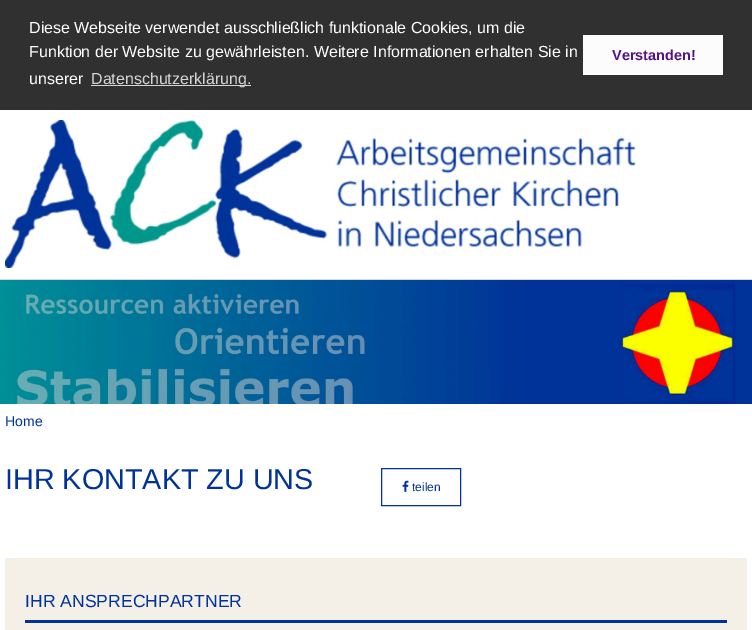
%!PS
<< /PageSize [752 630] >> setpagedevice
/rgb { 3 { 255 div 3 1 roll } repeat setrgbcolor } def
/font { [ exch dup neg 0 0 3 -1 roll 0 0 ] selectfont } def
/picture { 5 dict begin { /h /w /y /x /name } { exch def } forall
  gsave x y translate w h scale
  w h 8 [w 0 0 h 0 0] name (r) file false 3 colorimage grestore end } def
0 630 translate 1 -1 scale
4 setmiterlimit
255 255 255 rgb
0 0 752 630 rectfill
[
  [0 0 752 110 48 48 48]
  [91 85 160 1 214 214 214]
  [583 35 140 40 252 252 252]
  [0 279 752 1 216 216 216]
] { aload pop rgb rectfill } forall
(img/1.rgb) 5 120 631 148 picture
(img/2.rgb) 0 280 752 124 picture
(img/3.rgb) 13 283 725 121 picture
0 51 153 rgb
381.5 468.5 79 37 rectstroke
(img/4.rgb) 402 480 7 12 picture
244 240 232 rgb
5 558 742 72 rectfill
0 51 153 rgb
25 620 702 3 rectfill
/LiberationSans-Regular 16 font
255 255 255 rgb
[
  [(Diese Webseite verwendet ausschließlich funktionale Cookies, um die) 29 33]
  [(Funktion der Website zu gewährleisten. Weitere Informationen erhalten Sie in) 29 57]
  [(unserer) 29 84]
] { aload pop moveto show } forall
214 214 214 rgb
91 84 moveto (Datenschutzerklärung.) show
/LiberationSans-Bold 14.5 font
85 18 133 rgb
612 60 moveto (Verstanden!) show
/LiberationSans-Regular 14 font
0 51 153 rgb
5 426 moveto (Home) show
/LiberationSans-Regular 28.75 font
5 489 moveto (IHR KONTAKT ZU UNS) show
/LiberationSans-Regular 12 font
412 491 moveto (teilen) show
/LiberationSans-Regular 17.6 font
25 607 moveto (IHR ANSPRECHPARTNER) show
showpage
